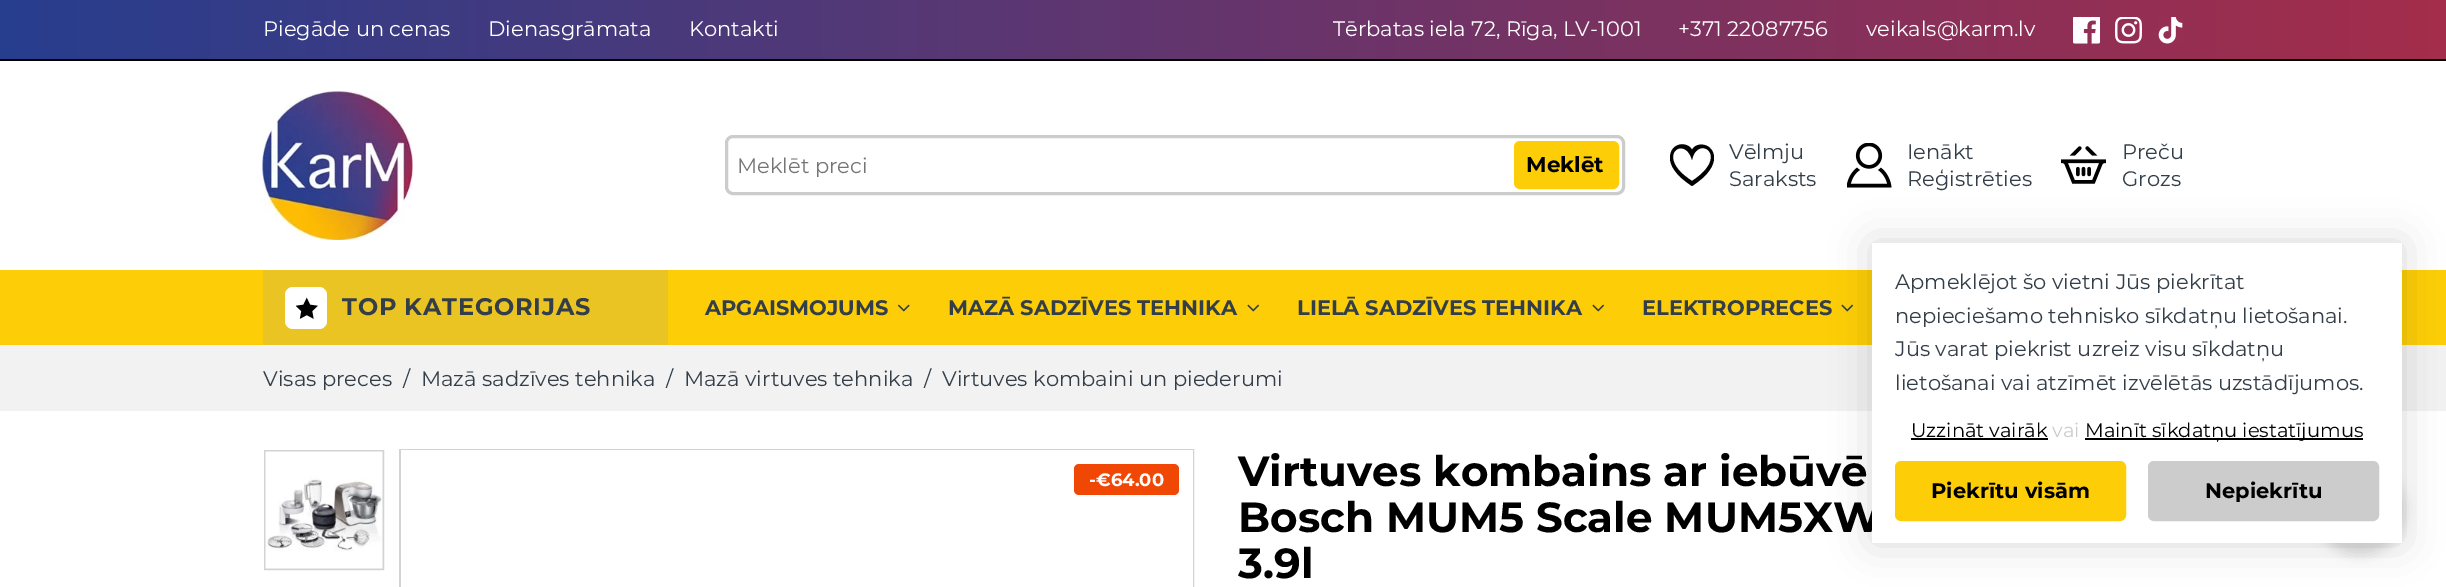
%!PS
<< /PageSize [2446 587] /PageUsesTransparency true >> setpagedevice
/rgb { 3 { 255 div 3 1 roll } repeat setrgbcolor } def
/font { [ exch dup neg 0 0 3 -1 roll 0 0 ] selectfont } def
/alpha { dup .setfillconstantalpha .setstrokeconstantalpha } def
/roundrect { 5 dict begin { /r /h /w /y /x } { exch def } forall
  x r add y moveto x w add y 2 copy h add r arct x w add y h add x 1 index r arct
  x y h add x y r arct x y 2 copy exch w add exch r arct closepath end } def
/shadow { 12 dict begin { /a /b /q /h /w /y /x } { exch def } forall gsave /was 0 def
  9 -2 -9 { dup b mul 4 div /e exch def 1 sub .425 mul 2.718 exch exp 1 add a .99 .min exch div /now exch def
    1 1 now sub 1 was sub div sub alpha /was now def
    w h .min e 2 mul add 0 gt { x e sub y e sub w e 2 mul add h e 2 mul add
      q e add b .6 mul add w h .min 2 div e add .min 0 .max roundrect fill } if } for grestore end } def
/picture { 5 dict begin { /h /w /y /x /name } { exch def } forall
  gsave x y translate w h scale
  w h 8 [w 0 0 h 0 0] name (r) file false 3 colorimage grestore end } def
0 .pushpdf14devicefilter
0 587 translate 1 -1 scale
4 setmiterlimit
255 255 255 rgb
0 0 2446 587 rectfill
gsave 0 0 moveto 2446 0 lineto 2446 59 lineto 0 59 lineto closepath clip newpath
<< /ShadingType 2 /ColorSpace /DeviceRGB /Coords [0 29 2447 29] /Extend [true true] /Function << /FunctionType 2 /Domain [0 1] /C0 [0.153 0.243 0.557] /C1 [0.643 0.176 0.294] /N 1 >> >> shfill grestore
0 0 0 rgb
0 59 2446 2 rectfill
(img/1.rgb) 2073 17 27 27 picture
(img/2.rgb) 2115 17 27 27 picture
(img/3.rgb) 2158 17 25 27 picture
(img/4.rgb) 262 91 151 149 picture
204 204 204 rgb
3 setlinewidth
726.5 136.5 897 57 6.5 roundrect stroke
253 206 7 rgb
1515 142 103 46 5 roundrect gsave fill grestore
2 setlinewidth
stroke
0 0 0 rgb
1692 160 moveto 1697 134 1732 155 1692 181 curveto 1653 156 1685 134 1692 160 curveto closepath 1670 158 moveto 1670 165 1675 175 1692 186 curveto 1709 175 1714 165 1714 158 curveto 1714 143 1696 141 1692 150 curveto 1688 141 1670 142 1670 158 curveto closepath fill
(img/5.rgb) 1847 143 45 45 picture
(img/6.rgb) 2061 146 45 38 picture
253 206 7 rgb
0 270 2446 75 rectfill
234 196 34 rgb
263 270 405 75 rectfill
255 255 255 rgb
285 287 42 42 8 roundrect fill
(img/7.rgb) 296 297 22 22 picture
(img/8.rgb) 897 304 13 8 picture
(img/9.rgb) 1247 304 13 8 picture
(img/9.rgb) 1592 304 13 8 picture
(img/9.rgb) 1841 304 13 8 picture
242 242 242 rgb
0 345 2446 66 rectfill
211 211 211 rgb
265 451 118 118 rectstroke
(img/10.rgb) 265 451 118 118 picture
400 450 793 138 rectstroke
255 255 255 rgb
401 450 792 137 rectfill
241 71 5 rgb
1074 464 105 31 5 roundrect fill
0 0 0 rgb
1872 243 530 300 0 20 0.15 shadow
2315 465 90 90 45 6 0.14 shadow
/Montserrat-Thin 21 font
255 255 255 rgb
[
  [(Piegāde un cenas) 263 36]
  [(Dienasgrāmata) 488 36]
  [(Kontakti) 689 36]
  [(Tērbatas iela 72, Rīga, LV-1001) 1333 36]
  [(+371 22087756) 1678 36]
  [(veikals@karm.lv) 1866 36]
] { aload pop moveto show } forall
117 117 117 rgb
737 173 moveto (Meklēt preci) show
/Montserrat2-Thin 21.5 font
0 0 0 rgb
1526 172 moveto (Meklēt) show
/Montserrat-Thin 21 font
51 62 72 rgb
[
  [(Vēlmju) 1729 159]
  [(Saraksts) 1729 186]
  [(Ienākt) 1907 159]
  [(Reģistrēties) 1907 186]
  [(Preču) 2122 159]
  [(Grozs) 2122 186]
] { aload pop moveto show } forall
/Montserrat2-Thin 24 font
342 315 moveto 0.75 0 (TOP KATEGORIJAS) ashow
/Montserrat2-Thin 21 font
[
  [(APGAISMOJUMS) 705 315]
  [(MAZĀ SADZĪVES TEHNIKA) 948 315]
  [(LIELĀ SADZĪVES TEHNIKA) 1297 315]
  [(ELEKTROPRECES) 1642 315]
] { aload pop moveto show } forall
/Montserrat-Thin 21 font
[
  [(Visas preces) 263 386]
  [(/) 403 386]
  [(Mazā sadzīves tehnika) 421 386]
  [(/) 666 386]
  [(Mazā virtuves tehnika) 684 386]
  [(/) 924 386]
  [(Virtuves kombaini un piederumi) 942 386]
] { aload pop moveto show } forall
/Montserrat2-Thin 18 font
255 255 255 rgb
1089 486 moveto (-€64.00) show
/Montserrat2-Thin 42 font
0 0 0 rgb
[
  [(Virtuves kombains ar iebūvē) 1238 486]
  [(Bosch MUM5 Scale MUM5XW) 1238 532]
  [(3.9l) 1238 578]
] { aload pop moveto show } forall
255 255 255 rgb
1872 243 530 300 rectfill
/Montserrat-Thin 21 font
51 62 72 rgb
[
  [(Apmeklējot šo vietni Jūs piekrītat) 1895 289]
  [(nepieciešamo tehnisko sīkdatņu lietošanai.) 1895 323]
  [(Jūs varat piekrist uzreiz visu sīkdatņu) 1895 356]
  [(lietošanai vai atzīmēt izvēlētās uzstādījumos.) 1895 390]
] { aload pop moveto show } forall
/Montserrat-Thin 19.5 font
0 0 0 rgb
1911 437 moveto (Uzzināt vairāk) show
1911 438 137 2 rectfill
204 204 204 rgb
2052 437 moveto (vai) show
0 0 0 rgb
2085 438 278 2 rectfill
2085 437 moveto (Mainīt sīkdatņu iestatījumus) show
253 206 7 rgb
1896 462 229 58 5 roundrect gsave fill grestore
stroke
/Montserrat2-Thin 21 font
0 0 0 rgb
1931 498 moveto (Piekrītu visām) show
204 204 204 rgb
2149 462 229 58 5 roundrect gsave fill grestore
stroke
0 0 0 rgb
2205 498 moveto (Nepiekrītu) show
.poppdf14devicefilter showpage
